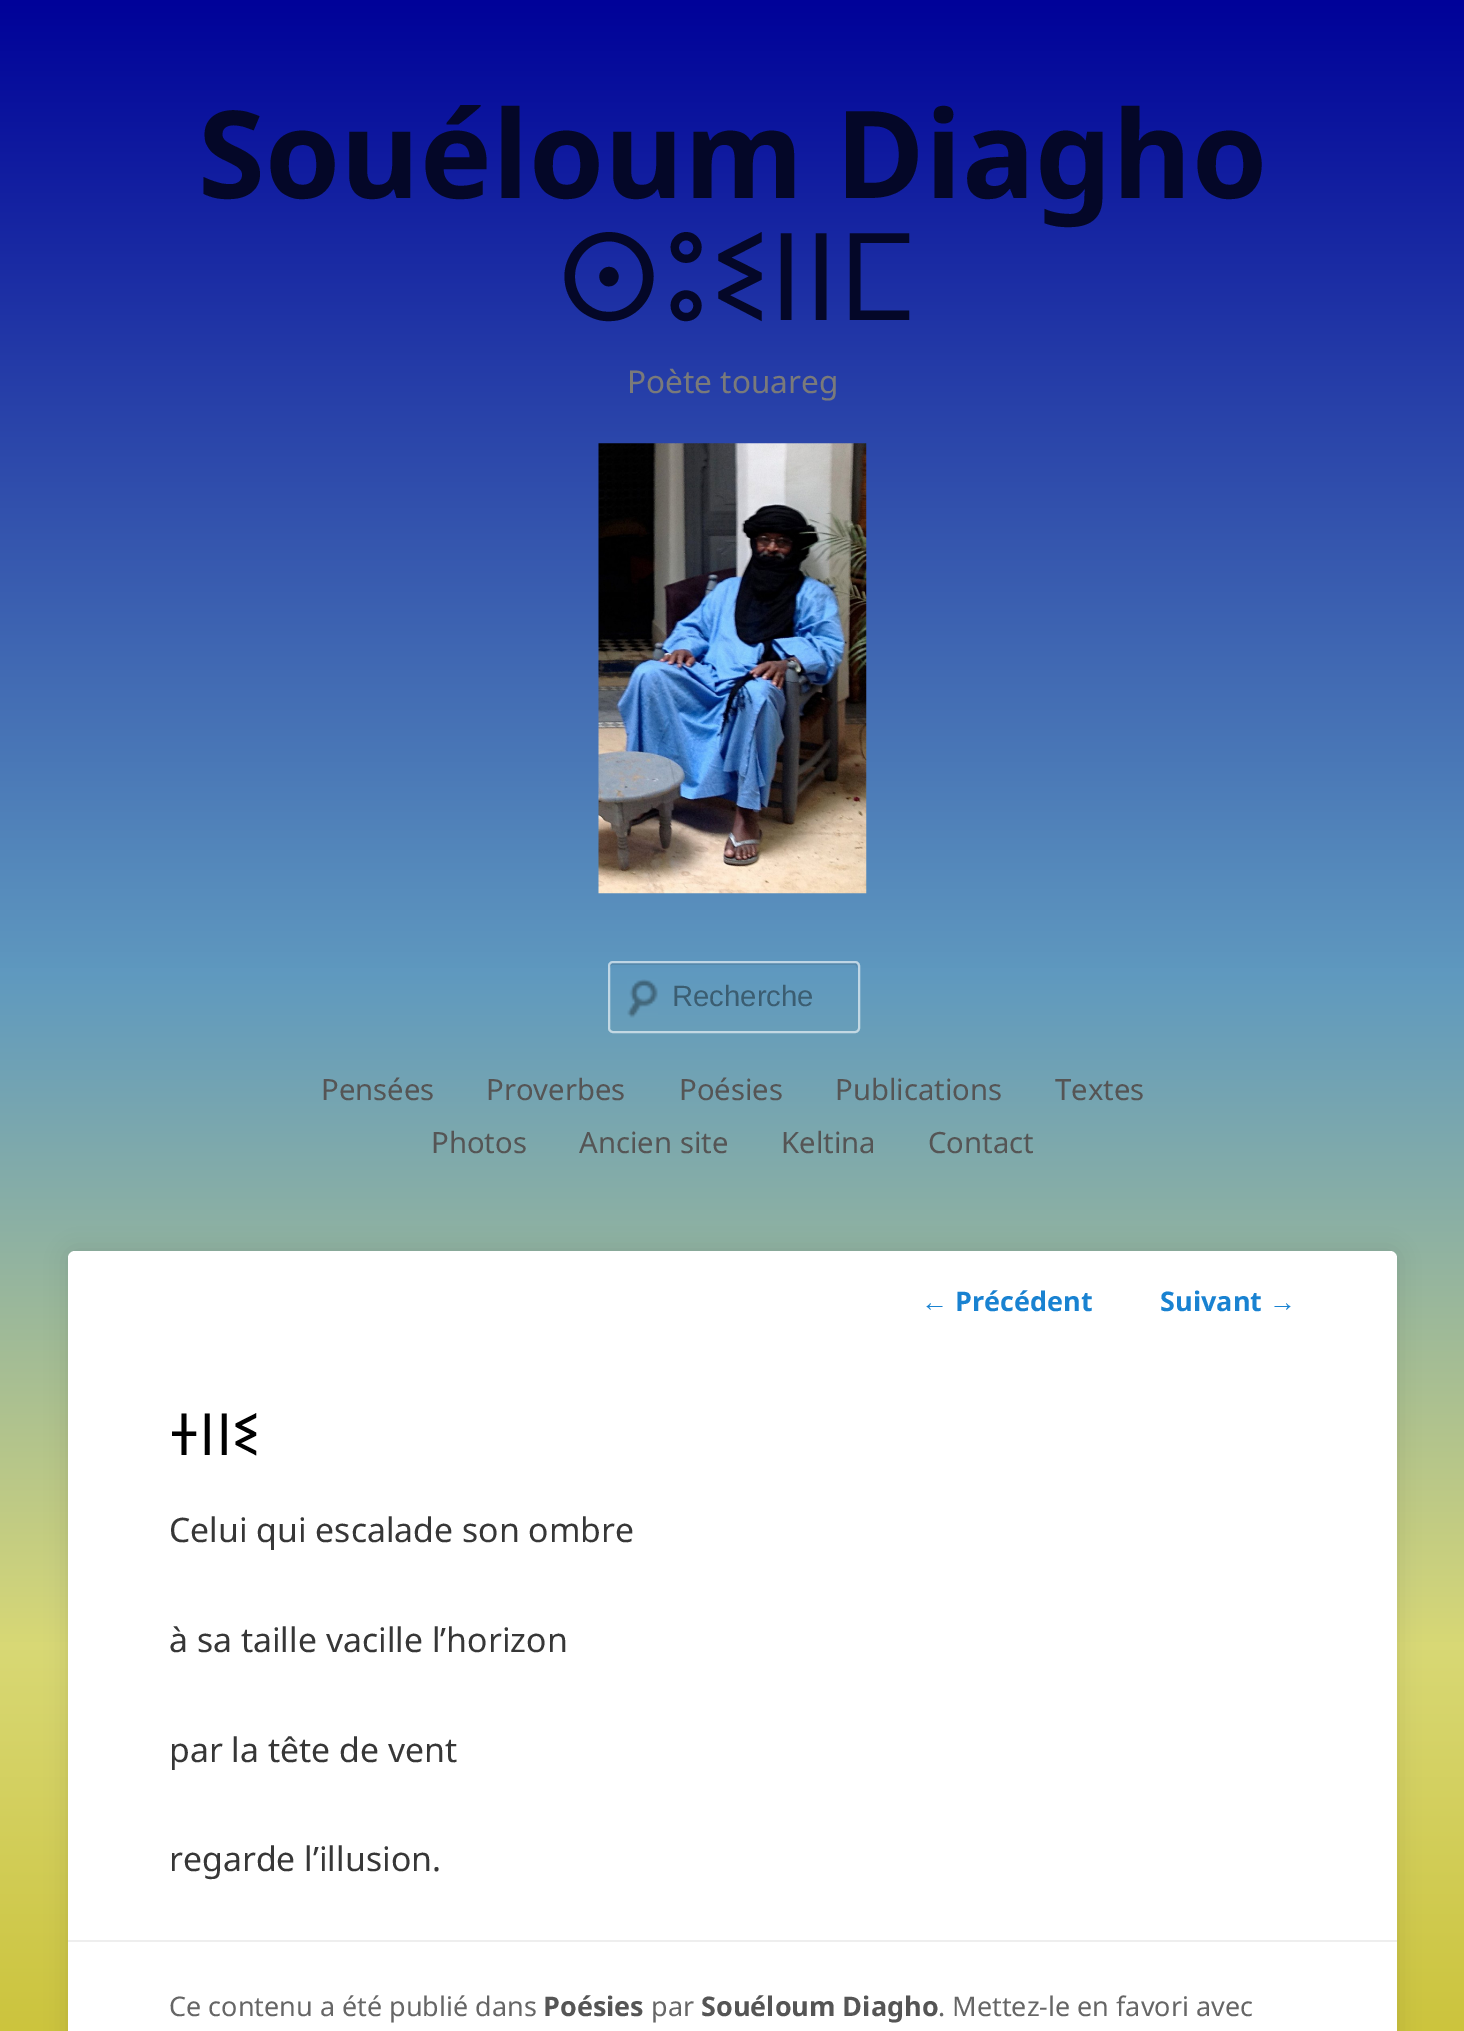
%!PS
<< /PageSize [1464 2031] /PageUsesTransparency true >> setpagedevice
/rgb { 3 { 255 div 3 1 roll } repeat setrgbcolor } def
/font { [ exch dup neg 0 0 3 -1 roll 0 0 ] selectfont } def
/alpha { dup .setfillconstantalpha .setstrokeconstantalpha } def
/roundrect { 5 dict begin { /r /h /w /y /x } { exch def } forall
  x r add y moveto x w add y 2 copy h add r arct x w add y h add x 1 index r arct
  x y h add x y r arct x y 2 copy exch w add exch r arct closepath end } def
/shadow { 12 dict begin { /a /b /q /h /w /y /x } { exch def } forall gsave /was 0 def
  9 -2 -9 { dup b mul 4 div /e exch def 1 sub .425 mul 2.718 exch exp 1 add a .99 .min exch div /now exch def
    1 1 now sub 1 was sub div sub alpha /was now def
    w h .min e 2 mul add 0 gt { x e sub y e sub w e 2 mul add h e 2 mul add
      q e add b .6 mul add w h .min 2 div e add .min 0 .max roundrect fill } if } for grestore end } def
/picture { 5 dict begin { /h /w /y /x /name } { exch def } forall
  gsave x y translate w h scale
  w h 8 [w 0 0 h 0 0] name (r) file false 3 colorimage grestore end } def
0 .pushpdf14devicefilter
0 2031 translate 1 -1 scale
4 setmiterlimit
255 255 255 rgb
0 0 1464 2031 rectfill
gsave 0 0 moveto 1464 0 lineto 1464 2031 lineto 0 2031 lineto closepath clip newpath
<< /ShadingType 2 /ColorSpace /DeviceRGB /Coords [732 0 732 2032] /Extend [true true] /Function << /FunctionType 3 /Domain [0 1] /Functions [<< /FunctionType 2 /Domain [0 1] /C0 [0 0.008 0.6] /C1 [0.373 0.6 0.749] /N 1 >> << /FunctionType 2 /Domain [0 1] /C0 [0.373 0.6 0.749] /C1 [0.847 0.847 0.459] /N 1 >> << /FunctionType 2 /Domain [0 1] /C0 [0.847 0.847 0.459] /C1 [0.8 0.769 0.239] /N 1 >>] /Bounds [0.48 0.81] /Encode [0 1 0 1 0 1] >> >> shfill grestore
(img/1.rgb) 598 443 269 451 picture
(img/2.rgb) 627 979 31 39 picture
85 136 172 rgb
612 965 moveto 855 965 lineto 856 965 857 966 857 968 curveto 857 966 858 963 855 963 curveto 612 963 lineto 609 963 610 966 610 968 curveto 610 966 611 965 612 965 curveto closepath fill
0.6 alpha
255 255 255 rgb
2 setlinewidth
609 962 250 70 4 roundrect stroke
1 alpha
0 0 0 rgb
68 1251 1329 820 7 11 0.1 shadow
255 255 255 rgb
68 1251 1329 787 7 roundrect fill
238 238 238 rgb
68 1940 1329 2 rectfill
/NotoSans-Bold 121.5 font
4 7 40 rgb
198 198 moveto (Souéloum Diagho) show
/NotoSansTifinagh-Regular 121.5 font
557 320 moveto (ⵙⵓⵉⵏⵏⵎ) show
/NotoSans-Regular 31.5 font
122 122 122 rgb
627 393 moveto (Poète touareg) show
/LiberationSans-Regular 29.25 font
59 93 113 rgb
672 1006 moveto (Recherche) show
/NotoSans-Regular 29.25 font
85 85 85 rgb
[
  [(Pensées) 321 1100]
  [(Proverbes) 486 1100]
  [(Poésies) 679 1100]
  [(Publications) 835 1100]
  [(Textes) 1055 1100]
  [(Photos) 431 1153]
  [(Ancien site) 579 1153]
  [(Keltina) 781 1153]
  [(Contact) 928 1153]
] { aload pop moveto show } forall
/NotoSans-Regular 27 font
25 130 209 rgb
921 1311 moveto (←) show
/NotoSans-Bold 27 font
955 1311 moveto (Précédent) show
1160 1311 moveto (Suivant) show
/NotoSans-Regular 27 font
1269 1311 moveto (→) show
/NotoSansTifinagh-Regular 58 font
0 0 0 rgb
169 1455 moveto (ⵜⵏⵏⵉ) show
/NotoSans-Regular 33.75 font
55 55 55 rgb
[
  [(Celui qui escalade son ombre) 169 1542]
  [(à sa taille vacille l’horizon) 169 1652]
  [(par la tête de vent) 169 1762]
  [(regarde l’illusion.) 169 1871]
] { aload pop moveto show } forall
/NotoSans-Regular 27 font
102 102 102 rgb
169 2016 moveto (Ce contenu a été publié dans) show
/NotoSans-Bold 27 font
85 85 85 rgb
543 2016 moveto (Poésies) show
/NotoSans-Regular 27 font
102 102 102 rgb
651 2016 moveto (par) show
/NotoSans-Bold 27 font
85 85 85 rgb
701 2016 moveto (Souéloum Diagho) show
/NotoSans-Regular 27 font
102 102 102 rgb
938 2016 moveto (. Mettez-le en favori avec) show
.poppdf14devicefilter showpage
